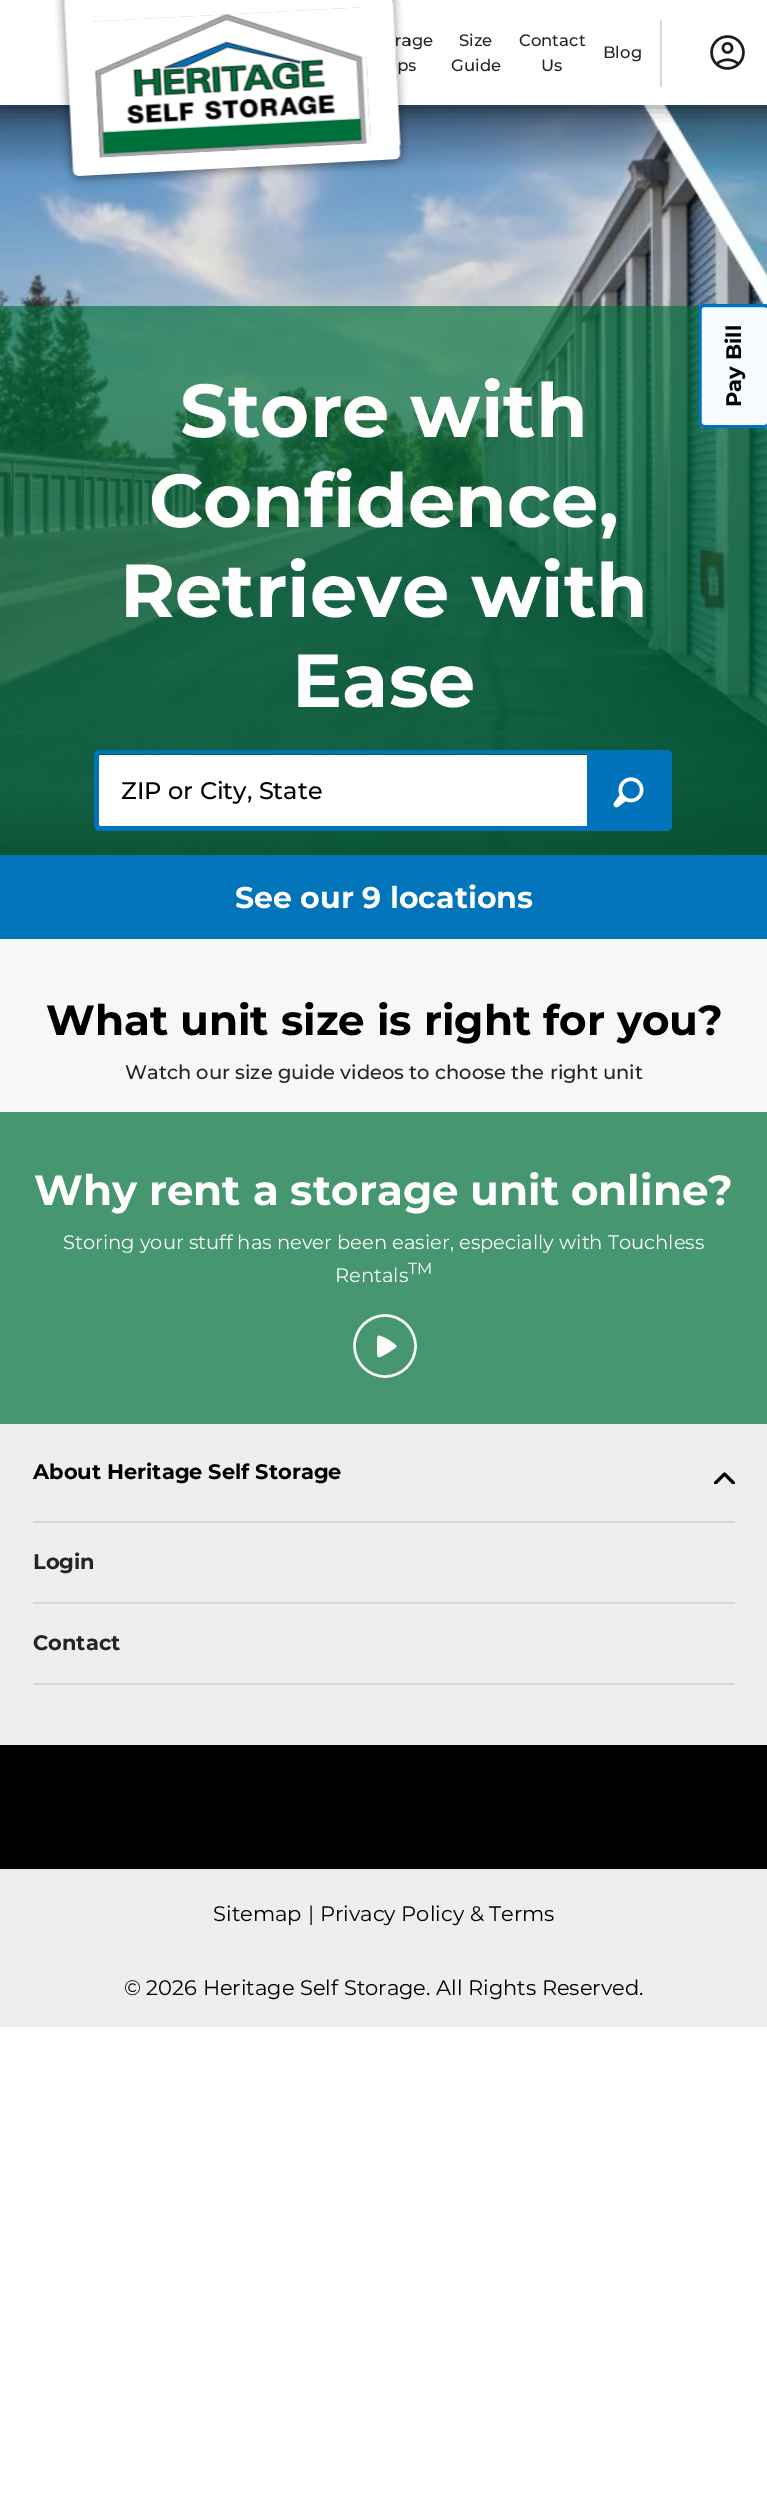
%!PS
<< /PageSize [767 2507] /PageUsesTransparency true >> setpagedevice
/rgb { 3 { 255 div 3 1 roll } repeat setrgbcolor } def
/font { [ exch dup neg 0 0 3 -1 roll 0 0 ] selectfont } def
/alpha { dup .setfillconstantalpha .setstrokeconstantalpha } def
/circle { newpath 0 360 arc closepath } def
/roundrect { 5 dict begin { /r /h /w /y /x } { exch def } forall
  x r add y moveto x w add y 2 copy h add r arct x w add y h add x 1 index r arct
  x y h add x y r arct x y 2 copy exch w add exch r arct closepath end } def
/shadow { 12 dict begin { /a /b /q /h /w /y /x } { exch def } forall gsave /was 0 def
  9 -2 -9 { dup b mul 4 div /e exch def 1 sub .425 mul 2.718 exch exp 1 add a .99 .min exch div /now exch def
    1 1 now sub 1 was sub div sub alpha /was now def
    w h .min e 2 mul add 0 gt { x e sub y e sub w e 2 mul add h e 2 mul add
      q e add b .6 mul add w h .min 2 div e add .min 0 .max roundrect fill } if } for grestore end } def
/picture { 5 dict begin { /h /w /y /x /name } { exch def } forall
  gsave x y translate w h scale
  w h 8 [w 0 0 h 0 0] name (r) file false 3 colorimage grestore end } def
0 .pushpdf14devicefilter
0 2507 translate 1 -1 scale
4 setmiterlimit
255 255 255 rgb
0 0 767 2507 rectfill
(img/3.rgb) 0 105 767 750 picture
gsave
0 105 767 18 rectclip
0 0 0 rgb
0 2 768 105 0 9 0.5 shadow
grestore
216 216 216 rgb
660 20 2 67 rectfill
(img/2.rgb) 710 35 35 35 picture
0.65 alpha
0 112 58 rgb
0 306 767 549 rectfill
1 alpha
247 251 253 rgb
699 422 moveto 699 310 lineto 699 307 701 304 705 304 curveto 765 304 lineto 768 304 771 307 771 310 curveto 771 422 lineto 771 425 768 428 765 428 curveto 705 428 lineto 701 428 699 425 699 422 curveto closepath fill
1 115 186 rgb
3 setlinewidth
700 422 moveto 700 310 lineto 700 307.5 702 305.5 704.5 305.5 curveto 764.5 305.5 lineto 767 305.5 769 307.5 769 310 curveto 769 422 lineto 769 424.5 767 426.5 764.5 426.5 curveto 704.5 426.5 lineto 702 426.5 700 424.5 700 422 curveto closepath stroke
255 255 255 rgb
100.5 755 moveto 650 755 lineto 650 827 lineto 100.5 827 lineto 99.5 827 99 826.5 99 825.5 curveto 99 756.5 lineto 99 755.5 99.5 755 100.5 755 curveto closepath fill
1 115 186 rgb
100 750 moveto 650 750 lineto 650 831 lineto 100 831 lineto 97 831 94 828 94 825 curveto 94 756 lineto 94 753 97 750 100 750 curveto closepath 100 754 moveto 650 754 lineto 650 826 lineto 100 826 lineto 100 826 99 826 99 825 curveto 99 756 lineto 99 755 100 754 100 754 curveto closepath eofill
587 750 moveto 666 750 lineto 669.5 750 672 752.5 672 756 curveto 672 825 lineto 672 828.5 669.5 831 666 831 curveto 587 831 lineto closepath fill
586 750 moveto 666 750 lineto 669 750 672 753 672 756 curveto 672 825 lineto 672 828 669 831 666 831 curveto 586 831 lineto closepath 586 752 moveto 666 752 lineto 668 752 670 754 670 756 curveto 670 825 lineto 670 827 668 830 666 830 curveto 586 830 lineto closepath eofill
(img/4.rgb) 613 777 31 31 picture
[
  [0 855 767 84 2 116 186]
  [0 939 767 173 247 247 247]
  [0 1112 767 312 70 150 112]
] { aload pop rgb rectfill } forall
253 253 253 rgb
2.4 setlinewidth
385 1346 30.5 circle stroke
395.5 1345 moveto 398 1346.5 394 1349 393 1349.5 curveto 388.5 1352.5 lineto 383 1355.5 lineto 382 1356 378.5 1358.5 377.5 1356 curveto 377 1353.5 377 1345.5 377 1343 curveto 377.5 1336 377 1334 383 1337 curveto 387.5 1339 392 1341.5 395.5 1345 curveto closepath eofill
238 238 238 rgb
0 1424 767 321 rectfill
gsave
714 1472 21 12 rectclip
0 0 0 rgb
3 setlinewidth
1 setlinecap
1 setlinejoin
715.5 1483 moveto 724.5 1474 lineto 733.5 1483 lineto stroke
grestore
[
  [33 1521 702 2 214 214 214]
  [33 1602 702 2 214 214 214]
  [33 1683 702 2 214 214 214]
  [0 1745 767 124 0 0 0]
  [0 1869 767 158 238 238 238]
] { aload pop rgb rectfill } forall
/Montserrat-Medium 16.5 font
33 37 41 rgb
395 46 moveto (rage) show
397 71 moveto (ps) show
(img/1.rgb) 55 0 354 186 picture
[
  [(Size) 459 46]
  [(Guide) 451 71]
  [(Contact) 519 46]
  [(Us) 541 71]
  [(Blog) 603 58]
] { aload pop moveto show } forall
/Montserrat-Bold 21 font
0 0 0 rgb
gsave 741 407 translate -90 rotate 0 0 moveto (Pay Bill) show grestore
/Montserrat-Bold 75 font
254 254 255 rgb
[
  [(Store with) 180 437]
  [(Confidence,) 149 527]
  [(Retrieve with) 120 617]
  [(Ease) 292 707]
] { aload pop moveto show } forall
/Montserrat-Medium 24 font
0 0 0 rgb
121 799 moveto (ZIP or City, State) show
/Montserrat-Bold 30 font
254 254 255 rgb
235 908 moveto (See our 9 locations) show
/Montserrat-Bold 42 font
0 0 0 rgb
46 1035 moveto (What unit size is right for you?) show
/Montserrat-Medium 19.5 font
33 37 41 rgb
125 1079 moveto (Watch our size guide videos to choose the right unit) show
/Montserrat-Bold 42 font
254 254 255 rgb
34 1205 moveto (Why rent a storage unit online?) show
/Montserrat-Regular 19.5 font
63 1249 moveto (Storing your stuff has never been easier, especially with Touchless) show
335 1282 moveto (Rentals) show
/Montserrat-Regular 16 font
408 1274 moveto (TM) show
/Montserrat-Bold 21 font
0 0 0 rgb
33 1479 moveto (About Heritage Self Storage) show
33 37 41 rgb
33 1569 moveto (Login) show
33 1650 moveto (Contact) show
/Montserrat-Regular 21 font
0 0 0 rgb
[
  [(Sitemap) 213 1921]
  [(| Privacy Policy & Terms) 308 1921]
  [(© 2026 Heritage Self Storage. All Rights Reserved.) 124 1995]
] { aload pop moveto show } forall
.poppdf14devicefilter showpage
